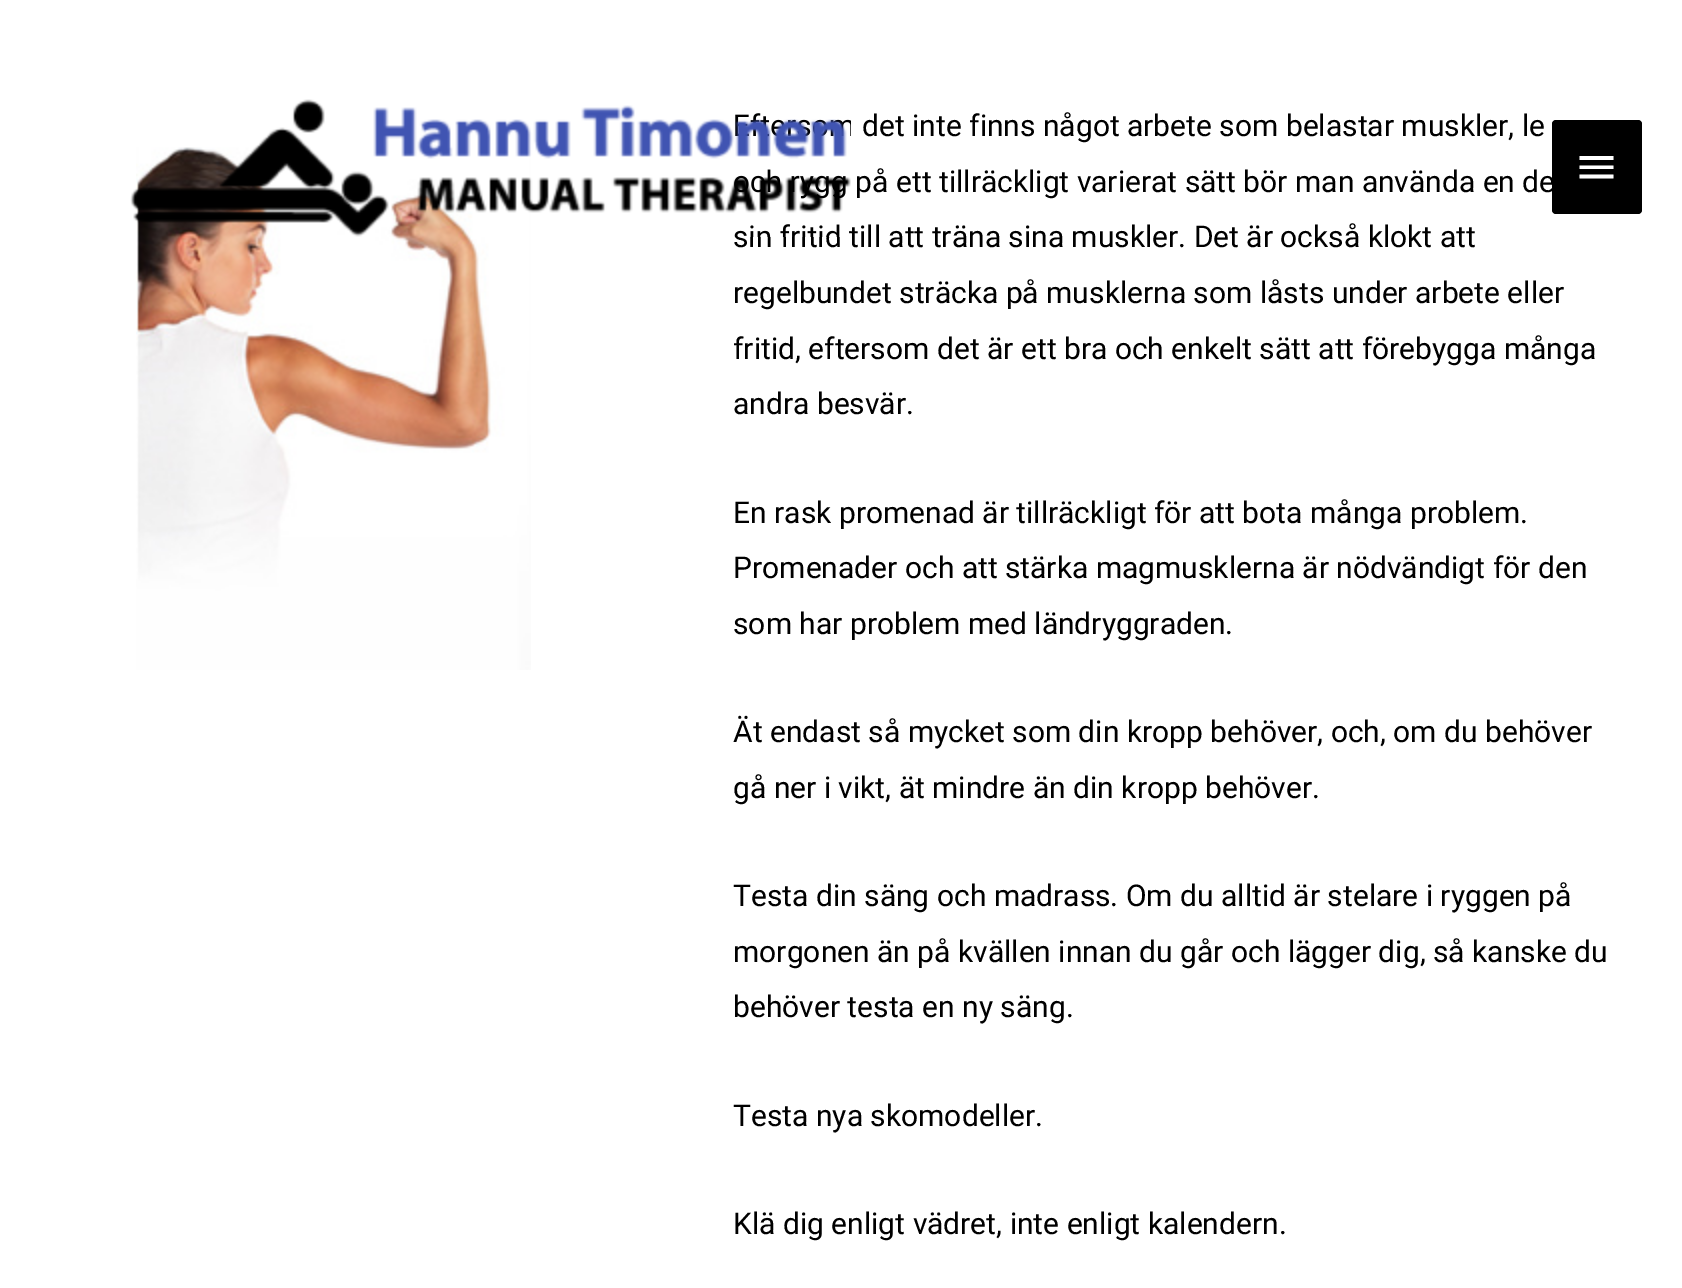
%!PS
<< /PageSize [1682 1288] >> setpagedevice
/rgb { 3 { 255 div 3 1 roll } repeat setrgbcolor } def
/font { [ exch dup neg 0 0 3 -1 roll 0 0 ] selectfont } def
/roundrect { 5 dict begin { /r /h /w /y /x } { exch def } forall
  x r add y moveto x w add y 2 copy h add r arct x w add y h add x 1 index r arct
  x y h add x y r arct x y 2 copy exch w add exch r arct closepath end } def
/picture { 5 dict begin { /h /w /y /x /name } { exch def } forall
  gsave x y translate w h scale
  w h 8 [w 0 0 h 0 0] name (r) file false 3 colorimage grestore end } def
0 1288 translate 1 -1 scale
4 setmiterlimit
255 255 255 rgb
0 0 1682 1288 rectfill
0 0 0 rgb
1552 120 90 94 4 roundrect fill
255 255 255 rgb
1579.5 156 moveto 1613.5 156 lineto 1613.5 160 lineto 1579.5 160 lineto closepath 1579.5 169 moveto 1579.5 165.5 lineto 1613.5 165.5 lineto 1613.5 169 lineto closepath 1579.5 178.5 moveto 1579.5 174.5 lineto 1613.5 174.5 lineto 1613.5 178.5 lineto closepath fill
(img/2.rgb) 136 147 395 523 picture
/Roboto-Regular 30 font
0 0 0 rgb
[
  [(det inte finns något arbete som belastar muskler, le) 862 136]
  [(och rygg på ett tillräckligt varierat sätt bör man använda en de) 733 192]
  [(sin fritid till att träna sina muskler. Det är också klokt att) 733 247]
] { aload pop moveto show } forall
(img/1.rgb) 130 99 721 138 picture
[
  [(regelbundet sträcka på musklerna som låsts under arbete eller) 733 303]
  [(fritid, eftersom det är ett bra och enkelt sätt att förebygga många) 733 359]
  [(andra besvär.) 733 414]
  [(En rask promenad är tillräckligt för att bota många problem.) 733 523]
  [(Promenader och att stärka magmusklerna är nödvändigt för den) 733 578]
  [(som har problem med ländryggraden.) 733 634]
  [(Ät endast så mycket som din kropp behöver, och, om du behöver) 733 742]
  [(gå ner i vikt, ät mindre än din kropp behöver.) 733 798]
  [(Testa din säng och madrass. Om du alltid är stelare i ryggen på) 733 906]
  [(morgonen än på kvällen innan du går och lägger dig, så kanske du) 733 962]
  [(behöver testa en ny säng.) 733 1017]
  [(Testa nya skomodeller.) 733 1126]
  [(Klä dig enligt vädret, inte enligt kalendern.) 733 1234]
] { aload pop moveto show } forall
showpage
